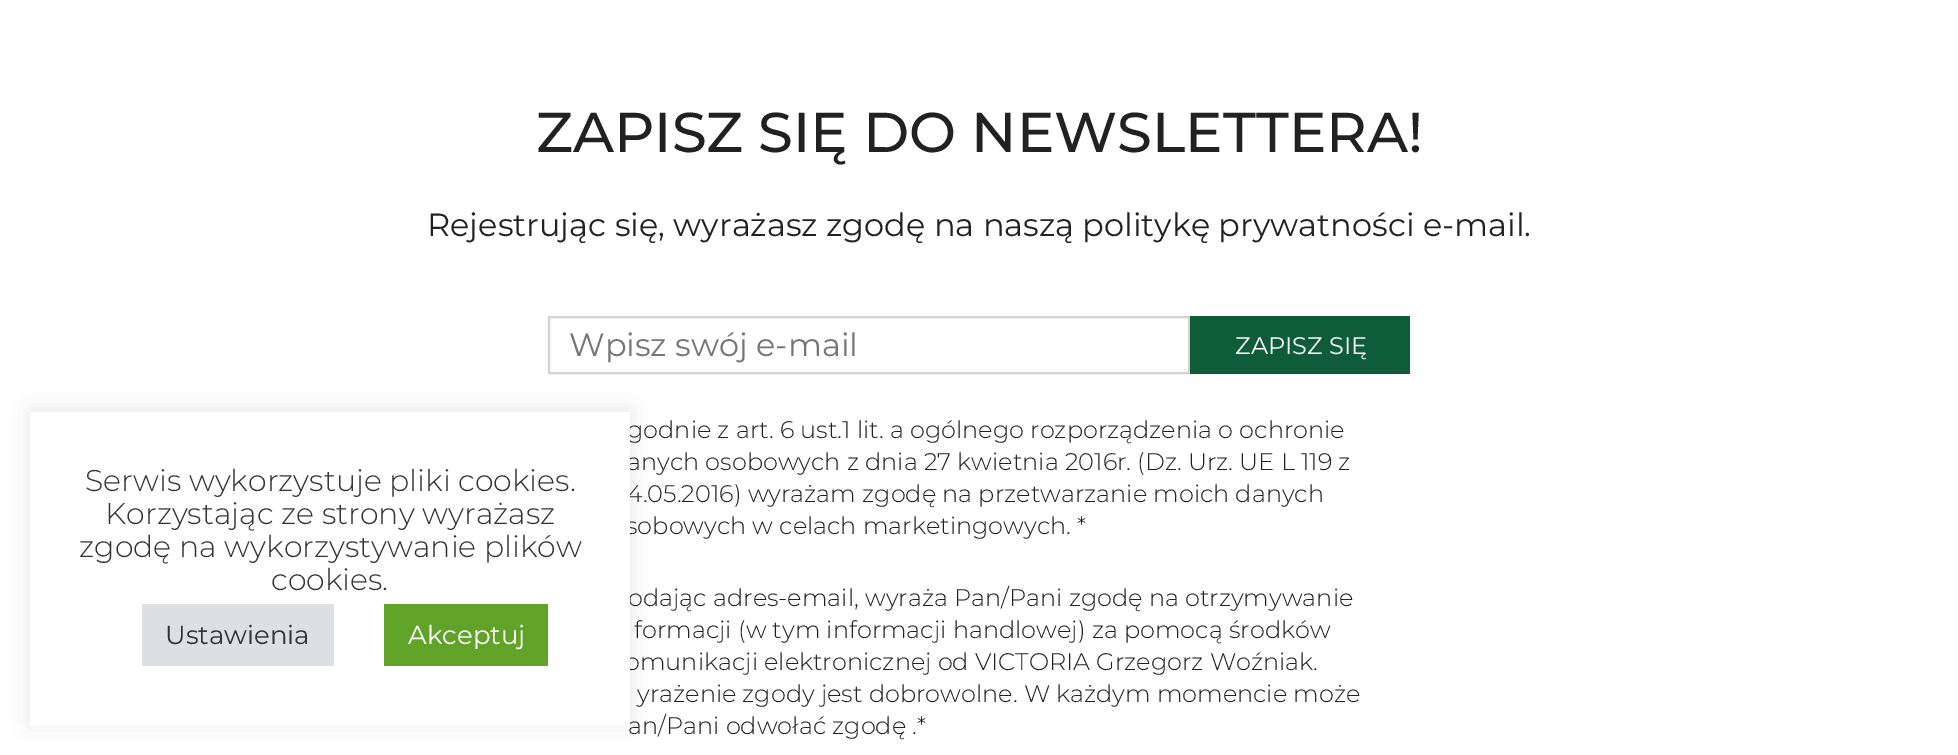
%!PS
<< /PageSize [1958 755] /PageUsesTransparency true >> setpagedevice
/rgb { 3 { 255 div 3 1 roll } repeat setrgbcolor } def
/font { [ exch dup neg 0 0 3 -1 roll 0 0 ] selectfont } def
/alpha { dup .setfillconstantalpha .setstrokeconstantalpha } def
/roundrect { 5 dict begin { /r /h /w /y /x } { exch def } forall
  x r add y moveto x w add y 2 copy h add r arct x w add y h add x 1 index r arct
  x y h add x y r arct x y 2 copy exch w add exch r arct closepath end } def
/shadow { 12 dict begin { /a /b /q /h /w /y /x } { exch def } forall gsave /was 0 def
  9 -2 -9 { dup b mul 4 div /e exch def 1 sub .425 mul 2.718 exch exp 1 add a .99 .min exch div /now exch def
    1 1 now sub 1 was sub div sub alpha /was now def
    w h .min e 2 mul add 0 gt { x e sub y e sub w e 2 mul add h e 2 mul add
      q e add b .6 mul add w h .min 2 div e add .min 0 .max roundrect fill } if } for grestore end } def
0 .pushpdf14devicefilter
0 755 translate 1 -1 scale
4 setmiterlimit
255 255 255 rgb
0 0 1958 755 rectfill
172 171 171 rgb
30 410 600 314 0 10 0.3 shadow
211 211 211 rgb
2 setlinewidth
549 317 640 56 rectstroke
14 92 56 rgb
1190 316 220 58 rectfill
/Montserrat-Medium 56 font
33 33 33 rgb
536 152 moveto (ZAPISZ SIĘ DO NEWSLETTERA!) show
/Montserrat-Regular 32 font
427 236 moveto (Rejestrując się, wyrażasz zgodę na naszą politykę prywatności e-mail.) show
117 117 117 rgb
569 356 moveto (Wpisz swój e-mail) show
/Montserrat-Regular 24 font
255 255 255 rgb
1235 354 moveto (ZAPISZ SIĘ) show
/Montserrat-Light 24 font
33 33 33 rgb
[
  [(godnie z art. 6 ust.1 lit. a ogólnego rozporządzenia o ochronie) 627 438]
  [(anych osobowych z dnia 27 kwietnia 2016r. \(Dz. Urz. UE L 119 z) 627 470]
  [(4.05.2016\) wyrażam zgodę na przetwarzanie moich danych) 627 502]
  [(sobowych w celach marketingowych. *) 626 534]
  [(odając adres-email, wyraża Pan/Pani zgodę na otrzymywanie) 628 606]
  [(formacji \(w tym informacji handlowej\) za pomocą środków) 634 638]
  [(omunikacji elektronicznej od VICTORIA Grzegorz Woźniak.) 625 670]
  [(yrażenie zgody jest dobrowolne. W każdym momencie może) 637 702]
  [(an/Pani odwołać zgodę .*) 628 734]
] { aload pop moveto show } forall
255 255 255 rgb
30 412 600 314 rectfill
97 162 41 rgb
384 604 164 62 rectfill
/Montserrat-Regular 26 font
255 255 255 rgb
408 644 moveto (Akceptuj) show
222 223 224 rgb
142 604 192 62 rectfill
51 51 51 rgb
165 644 moveto (Ustawienia) show
/Montserrat-Light 30 font
[
  [(cookies.) 271 590]
  [(zgodę na wykorzystywanie plików) 79 557]
  [(Korzystając ze strony wyrażasz) 105 524]
  [(Serwis wykorzystuje pliki cookies.) 85 491]
] { aload pop moveto show } forall
.poppdf14devicefilter showpage
